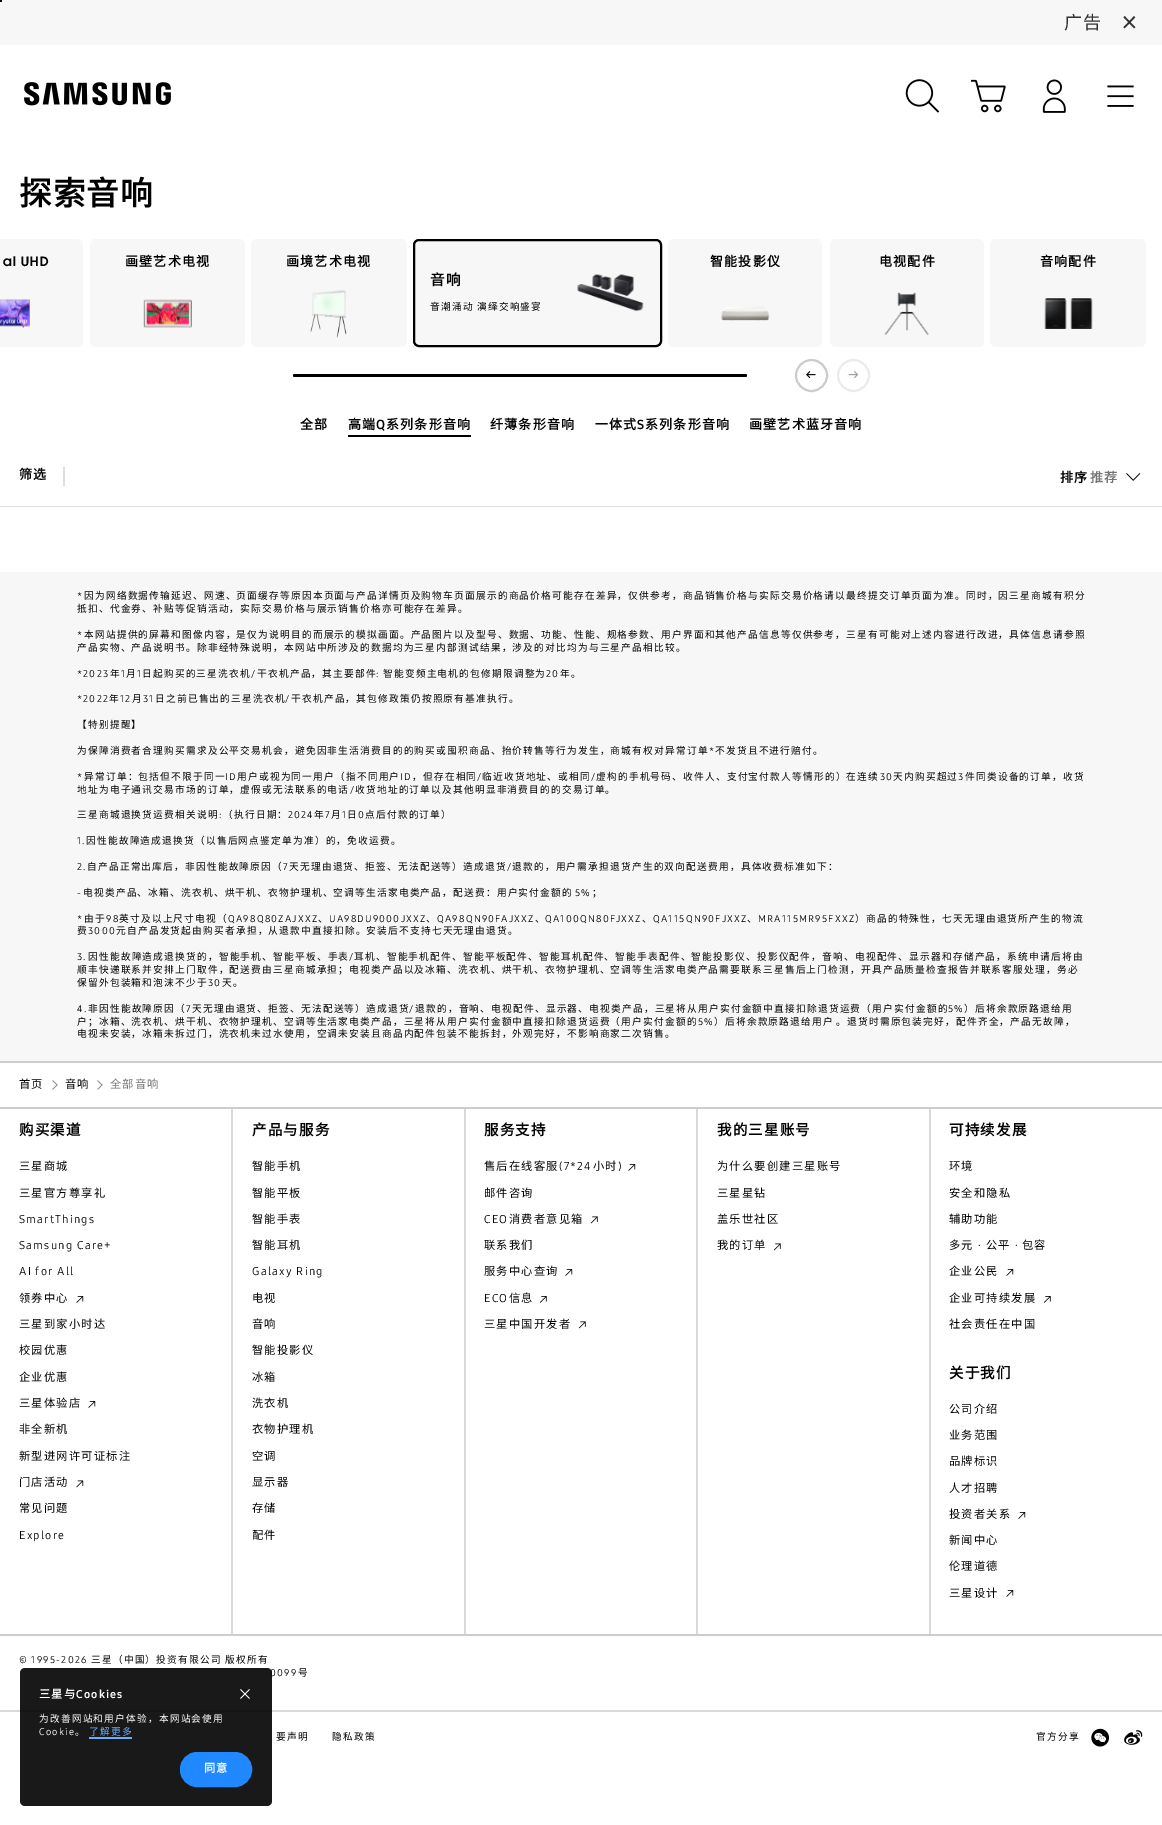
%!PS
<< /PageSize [1162 1825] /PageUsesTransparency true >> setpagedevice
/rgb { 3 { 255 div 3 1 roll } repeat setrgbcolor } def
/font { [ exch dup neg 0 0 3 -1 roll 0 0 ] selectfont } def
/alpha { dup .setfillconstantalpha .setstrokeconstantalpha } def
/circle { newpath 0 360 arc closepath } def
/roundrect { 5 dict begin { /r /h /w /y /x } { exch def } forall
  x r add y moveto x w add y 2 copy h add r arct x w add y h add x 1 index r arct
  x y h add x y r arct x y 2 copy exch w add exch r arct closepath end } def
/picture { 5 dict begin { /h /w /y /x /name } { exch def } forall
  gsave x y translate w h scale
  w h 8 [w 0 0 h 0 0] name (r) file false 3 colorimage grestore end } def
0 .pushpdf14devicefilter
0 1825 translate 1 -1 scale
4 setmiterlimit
255 255 255 rgb
0 0 1162 1825 rectfill
247 247 247 rgb
0 0 1162 45 rectfill
(img/1.rgb) 24 82 147 24 picture
(img/2.rgb) 905 79 35 34 picture
(img/3.rgb) 971 79 35 34 picture
(img/4.rgb) 1042 79 24 34 picture
(img/5.rgb) 1107 85 27 22 picture
0 239 moveto 77 239 lineto 80.5 239 83 241.5 83 245 curveto 83 341 lineto 83 344.5 80.5 347 77 347 curveto 0 347 lineto closepath fill
(img/6.rgb) 0 299 30 29 picture
90 239 155 108 6 roundrect fill
(img/7.rgb) 143 299 49 29 picture
251 239 156 108 6 roundrect fill
(img/8.rgb) 310 290 37 48 picture
668 239 154 108 6 roundrect fill
(img/9.rgb) 721 306 49 15 picture
830 239 154 108 6 roundrect fill
(img/10.rgb) 884 292 45 43 picture
990 239 156 108 6 roundrect fill
(img/11.rgb) 1044 298 49 31 picture
414 240 247 106 5 roundrect gsave fill grestore
0 0 0 rgb
2 setlinewidth
stroke
(img/12.rgb) 577 274 67 38 picture
293 374 454 3 1.5 roundrect fill
204 204 204 rgb
811.5 375.5 15.5 circle stroke
(img/13.rgb) 806 371 10 7 picture
235 235 235 rgb
853.5 375.5 15.5 circle stroke
(img/14.rgb) 848 371 10 7 picture
[
  [348 435 123 2 0 0 0]
  [0 506 1162 1 221 221 221]
  [63 467 2 19 221 221 221]
] { aload pop rgb rectfill } forall
(img/15.rgb) 1126 473 15 8 picture
247 247 247 rgb
0 572 1162 489 rectfill
204 204 204 rgb
0 1061 1162 2 rectfill
(img/16.rgb) 52 1080 6 10 picture
(img/16.rgb) 97 1080 6 10 picture
[
  [0 1107 1162 2 204 204 204]
  [231 1109 2 526 217 217 217]
  [0 1634 233 2 204 204 204]
] { aload pop rgb rectfill } forall
(img/17.rgb) 76 1296 8 7 picture
(img/17.rgb) 88 1401 8 7 picture
(img/18.rgb) 76 1480 8 8 picture
[
  [464 1109 2 526 217 217 217]
  [233 1634 232 2 204 204 204]
  [696 1109 2 526 217 217 217]
  [465 1634 233 2 204 204 204]
] { aload pop rgb rectfill } forall
(img/17.rgb) 628 1164 8 7 picture
(img/19.rgb) 590 1216 8 8 picture
(img/17.rgb) 565 1269 8 7 picture
(img/20.rgb) 539 1296 8 7 picture
(img/19.rgb) 578 1321 8 8 picture
217 217 217 rgb
929 1109 2 526 rectfill
204 204 204 rgb
698 1634 464 2 rectfill
(img/19.rgb) 773 1243 8 8 picture
(img/17.rgb) 1006 1269 8 7 picture
(img/20.rgb) 1043 1296 8 7 picture
(img/17.rgb) 1018 1512 8 7 picture
(img/17.rgb) 1006 1590 8 7 picture
217 217 217 rgb
0 1710 1162 2 rectfill
110 1733 2 10 rectfill
(img/21.rgb) 1091 1728 19 19 picture
(img/22.rgb) 1124 1730 19 15 picture
0 0 0 rgb
0 0 2 2 rectfill
/NotoSansCJKSC-Regular 18 font
52 51 51 rgb
1064 29 moveto 1.2 0 (广告) ashow
/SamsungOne-Regular 30 font
1121 33 moveto 1.2 0 (×) ashow
/NotoSansCJKSC-Bold 32.5 font
0 0 0 rgb
19 205 moveto 1.2 0 (探索音响) ashow
/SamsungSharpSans-Bold 13 font
3 266 moveto 1.2 0 (al UHD) ashow
/NotoSansCJKSC-Bold 13 font
125 266 moveto 1.2 0 (画壁艺术电视) ashow
286 266 moveto 1.2 0 (画境艺术电视) ashow
710 266 moveto 1.2 0 (智能投影仪) ashow
879 266 moveto 1.2 0 (电视配件) ashow
1040 266 moveto 1.2 0 (音响配件) ashow
/NotoSansCJKSC-Bold 14.5 font
430 285 moveto 1.2 0 (音响) ashow
/NotoSansCJKSC-Regular 9.69 font
430 310 moveto 1.2 0 (音潮涌动 演绎交响盛宴) ashow
/NotoSansCJKSC-Bold 13 font
300 429 moveto 1.2 0 (全部) ashow
348 429 moveto 1.2 0 (高端) ashow
/SamsungOne-Bold 13 font
376 429 moveto 1.2 0 (Q) ashow
/NotoSansCJKSC-Bold 13 font
386 429 moveto 1.2 0 (系列条形音响) ashow
490 429 moveto 1.2 0 (纤薄条形音响) ashow
595 429 moveto 1.2 0 (一体式) ashow
/SamsungOne-Bold 13 font
637 429 moveto 1.2 0 (S) ashow
/NotoSansCJKSC-Bold 13 font
645 429 moveto 1.2 0 (系列条形音响) ashow
749 429 moveto 1.2 0 (画壁艺术蓝牙音响) ashow
19 479 moveto 1.2 0 (筛选) ashow
1060 482 moveto 1 0 (排序) ashow
117 117 117 rgb
1090 482 moveto 1 0 (推荐) ashow
/SamsungOne-Regular 9.69 font
0 0 0 rgb
77 599 moveto 1.2 0 (*) ashow
/NotoSansCJKSC-Regular 9.69 font
84 599 moveto 1.2 0 (因为网络数据传输延迟、网速、页面缓存等原因本页面与产品详情页及购物车页面展示的商品价格可能存在差异，仅供参考，商品销售价格与实际交易价格请以最终提交订单页面为准。同时，因三星商城有积分) ashow
77 612 moveto 1.2 0 (抵扣、代金券、补贴等促销活动，实际交易价格与展示销售价格亦可能存在差异。) ashow
/SamsungOne-Regular 9.69 font
77 638 moveto 1.2 0 (*) ashow
/NotoSansCJKSC-Regular 9.69 font
84 638 moveto 1.2 0 (本网站提供的屏幕和图像内容，是仅为说明目的而展示的模拟画面。产品图片以及型号、数据、功能、性能、规格参数、用户界面和其他产品信息等仅供参考，三星有可能对上述内容进行改进，具体信息请参照) ashow
77 651 moveto 1.2 0 (产品实物、产品说明书。除非经特殊说明，本网站中所涉及的数据均为三星内部测试结果，涉及的对比均为与三星产品相比较。) ashow
/SamsungOne-Regular 9.69 font
77 677 moveto 1.2 0 (*2023) ashow
/NotoSansCJKSC-Regular 9.69 font
110 677 moveto 1.2 0 (年) ashow
/SamsungOne-Regular 9.69 font
121 677 moveto 1.2 0 (1) ashow
/NotoSansCJKSC-Regular 9.69 font
126 677 moveto 1.2 0 (月) ashow
/SamsungOne-Regular 9.69 font
137 677 moveto 1.2 0 (1) ashow
/NotoSansCJKSC-Regular 9.69 font
142 677 moveto 1.2 0 (日起购买的三星洗衣机) ashow
/SamsungOne-Regular 9.69 font
251 677 moveto 1.2 0 (/) ashow
/NotoSansCJKSC-Regular 9.69 font
257 677 moveto 1.2 0 (干衣机产品，其主要部件) ashow
/SamsungOne-Regular 9.69 font
376 677 moveto 1.2 0 (:) ashow
/NotoSansCJKSC-Regular 9.69 font
383 677 moveto 1.2 0 (智能变频主电机的包修期限调整为) ashow
/SamsungOne-Regular 9.69 font
546 677 moveto 1.2 0 (20) ashow
/NotoSansCJKSC-Regular 9.69 font
560 677 moveto 1.2 0 (年。) ashow
/SamsungOne-Regular 9.69 font
77 702 moveto 1.2 0 (*2022) ashow
/NotoSansCJKSC-Regular 9.69 font
109 702 moveto 1.2 0 (年) ashow
/SamsungOne-Regular 9.69 font
120 702 moveto 1.2 0 (12) ashow
/NotoSansCJKSC-Regular 9.69 font
132 702 moveto 1.2 0 (月) ashow
/SamsungOne-Regular 9.69 font
143 702 moveto 1.2 0 (31) ashow
/NotoSansCJKSC-Regular 9.69 font
155 702 moveto 1.2 0 (日之前已售出的三星洗衣机) ashow
/SamsungOne-Regular 9.69 font
285 702 moveto 1.2 0 (/) ashow
/NotoSansCJKSC-Regular 9.69 font
291 702 moveto 1.2 0 (干衣机产品，其包修政策仍按照原有基准执行。) ashow
77 728 moveto 1.2 0 (【特别提醒】) ashow
77 754 moveto 1.2 0 (为保障消费者合理购买需求及公平交易机会，避免因非生活消费目的的购买或囤积商品、抬价转售等行为发生，商城有权对异常订单) ashow
/SamsungOne-Regular 9.69 font
709 754 moveto 1.2 0 (*) ashow
/NotoSansCJKSC-Regular 9.69 font
715 754 moveto 1.2 0 (不发货且不进行赔付。) ashow
/SamsungOne-Regular 9.69 font
77 780 moveto 1.2 0 (*) ashow
/NotoSansCJKSC-Regular 9.69 font
84 780 moveto 1.2 0 (异常订单：包括但不限于同一) ashow
/SamsungOne-Regular 9.69 font
225 780 moveto 1.2 0 (ID) ashow
/NotoSansCJKSC-Regular 9.69 font
237 780 moveto 1.2 0 (用户或视为同一用户（指不同用户) ashow
/SamsungOne-Regular 9.69 font
400 780 moveto 1.2 0 (ID) ashow
/NotoSansCJKSC-Regular 9.69 font
412 780 moveto 1.2 0 (，但存在相同) ashow
/SamsungOne-Regular 9.69 font
477 780 moveto 1.2 0 (/) ashow
/NotoSansCJKSC-Regular 9.69 font
482 780 moveto 1.2 0 (临近收货地址、或相同) ashow
/SamsungOne-Regular 9.69 font
591 780 moveto 1.2 0 (/) ashow
/NotoSansCJKSC-Regular 9.69 font
596 780 moveto 1.2 0 (虚构的手机号码、收件人、支付宝付款人等情形的）在连续) ashow
/SamsungOne-Regular 9.69 font
880 780 moveto 1.2 0 (30) ashow
/NotoSansCJKSC-Regular 9.69 font
893 780 moveto 1.2 0 (天内购买超过) ashow
/SamsungOne-Regular 9.69 font
958 780 moveto 1.2 0 (3) ashow
/NotoSansCJKSC-Regular 9.69 font
965 780 moveto 1.2 0 (件同类设备的订单，收货) ashow
77 793 moveto 1.2 0 (地址为电子通讯交易市场的订单，虚假或无法联系的电话) ashow
/SamsungOne-Regular 9.69 font
350 793 moveto 1.2 0 (/) ashow
/NotoSansCJKSC-Regular 9.69 font
355 793 moveto 1.2 0 (收货地址的订单以及其他明显非消费目的的交易订单。) ashow
77 818 moveto 1.2 0 (三星商城退换货运费相关说明) ashow
/SamsungOne-Regular 9.69 font
219 818 moveto 1.2 0 (:) ashow
/NotoSansCJKSC-Regular 9.69 font
223 818 moveto 1.2 0 (（执行日期：) ashow
/SamsungOne-Regular 9.69 font
288 818 moveto 1.2 0 (2024) ashow
/NotoSansCJKSC-Regular 9.69 font
314 818 moveto 1.2 0 (年) ashow
/SamsungOne-Regular 9.69 font
325 818 moveto 1.2 0 (7) ashow
/NotoSansCJKSC-Regular 9.69 font
331 818 moveto 1.2 0 (月) ashow
/SamsungOne-Regular 9.69 font
342 818 moveto 1.2 0 (1) ashow
/NotoSansCJKSC-Regular 9.69 font
347 818 moveto 1.2 0 (日) ashow
/SamsungOne-Regular 9.69 font
358 818 moveto 1.2 0 (0) ashow
/NotoSansCJKSC-Regular 9.69 font
365 818 moveto 1.2 0 (点后付款的订单）) ashow
/SamsungOne-Regular 9.69 font
77 844 moveto 1.2 0 (1.) ashow
/NotoSansCJKSC-Regular 9.69 font
86 844 moveto 1.2 0 (因性能故障造成退换货（以售后网点鉴定单为准）的，免收运费。) ashow
/SamsungOne-Regular 9.69 font
77 870 moveto 1.2 0 (2.) ashow
/NotoSansCJKSC-Regular 9.69 font
87 870 moveto 1.2 0 (自产品正常出库后，非因性能故障原因（) ashow
/SamsungOne-Regular 9.69 font
283 870 moveto 1.2 0 (7) ashow
/NotoSansCJKSC-Regular 9.69 font
289 870 moveto 1.2 0 (天无理由退货、拒签、无法配送等）造成退货) ashow
/SamsungOne-Regular 9.69 font
507 870 moveto 1.2 0 (/) ashow
/NotoSansCJKSC-Regular 9.69 font
512 870 moveto 1.2 0 (退款的，用户需承担退货产生的双向配送费用，具体收费标准如下：) ashow
/SamsungOne-Regular 9.69 font
77 896 moveto 1.2 0 (-) ashow
/NotoSansCJKSC-Regular 9.69 font
83 896 moveto 1.2 0 (电视类产品、冰箱、洗衣机、烘干机、衣物护理机、空调等生活家电类产品，配送费：用户实付金额的) ashow
/SamsungOne-Regular 9.69 font
575 896 moveto 1.2 0 (5%) ashow
/NotoSansCJKSC-Regular 9.69 font
592 896 moveto 1.2 0 (；) ashow
/SamsungOne-Regular 9.69 font
77 922 moveto 1.2 0 (*) ashow
/NotoSansCJKSC-Regular 9.69 font
84 922 moveto 1.2 0 (由于) ashow
/SamsungOne-Regular 9.69 font
106 922 moveto 1.2 0 (98) ashow
/NotoSansCJKSC-Regular 9.69 font
119 922 moveto 1.2 0 (英寸及以上尺寸电视（) ashow
/SamsungOne-Regular 9.69 font
228 922 moveto 1.2 0 (QA98Q80ZAJXXZ) ashow
/NotoSansCJKSC-Regular 9.69 font
318 922 moveto 1.2 0 (、) ashow
/SamsungOne-Regular 9.69 font
329 922 moveto 1.2 0 (UA98DU9000JXXZ) ashow
/NotoSansCJKSC-Regular 9.69 font
426 922 moveto 1.2 0 (、) ashow
/SamsungOne-Regular 9.69 font
437 922 moveto 1.2 0 (QA98QN90FAJXXZ) ashow
/NotoSansCJKSC-Regular 9.69 font
535 922 moveto 1.2 0 (、) ashow
/SamsungOne-Regular 9.69 font
545 922 moveto 1.2 0 (QA100QN80FJXXZ) ashow
/NotoSansCJKSC-Regular 9.69 font
642 922 moveto 1.2 0 (、) ashow
/SamsungOne-Regular 9.69 font
653 922 moveto 1.2 0 (QA115QN90FJXXZ) ashow
/NotoSansCJKSC-Regular 9.69 font
747 922 moveto 1.2 0 (、) ashow
/SamsungOne-Regular 9.69 font
758 922 moveto 1.2 0 (MRA115MR95FXXZ) ashow
/NotoSansCJKSC-Regular 9.69 font
855 922 moveto 1.2 0 (）商品的特殊性，七天无理由退货所产生的物流) ashow
77 934 moveto 1.2 0 (费) ashow
/SamsungOne-Regular 9.69 font
88 934 moveto 1.2 0 (3000) ashow
/NotoSansCJKSC-Regular 9.69 font
116 934 moveto 1.2 0 (元自产品发货起由购买者承担，从退款中直接扣除。安装后不支持七天无理由退货。) ashow
/SamsungOne-Regular 9.69 font
77 960 moveto 1.2 0 (3.) ashow
/NotoSansCJKSC-Regular 9.69 font
88 960 moveto 1.2 0 (因性能故障造成退换货的，智能手机、智能平板、手表) ashow
/SamsungOne-Regular 9.69 font
349 960 moveto 1.2 0 (/) ashow
/NotoSansCJKSC-Regular 9.69 font
354 960 moveto 1.2 0 (耳机、智能手机配件、智能平板配件、智能耳机配件、智能手表配件、智能投影仪、投影仪配件，音响、电视配件、显示器和存储产品，系统申请后将由) ashow
77 973 moveto 1.2 0 (顺丰快递联系并安排上门取件，配送费由三星商城承担；电视类产品以及冰箱、洗衣机、烘干机、衣物护理机、空调等生活家电类产品需要联系三星售后上门检测，开具产品质量检查报告并联系客服处理，务必) ashow
77 986 moveto 1.2 0 (保留外包装箱和泡沫不少于) ashow
/SamsungOne-Regular 9.69 font
208 986 moveto 1.2 0 (30) ashow
/NotoSansCJKSC-Regular 9.69 font
222 986 moveto 1.2 0 (天。) ashow
/SamsungOne-Regular 9.69 font
77 1012 moveto 1.2 0 (4.) ashow
/NotoSansCJKSC-Regular 9.69 font
88 1012 moveto 1.2 0 (非因性能故障原因（) ashow
/SamsungOne-Regular 9.69 font
186 1012 moveto 1.2 0 (7) ashow
/NotoSansCJKSC-Regular 9.69 font
192 1012 moveto 1.2 0 (天无理由退货、拒签、无法配送等）造成退货) ashow
/SamsungOne-Regular 9.69 font
409 1012 moveto 1.2 0 (/) ashow
/NotoSansCJKSC-Regular 9.69 font
415 1012 moveto 1.2 0 (退款的，音响、电视配件、显示器、电视类产品，三星将从用户实付金额中直接扣除退货运费（用户实付金额的) ashow
/SamsungOne-Regular 9.69 font
948 1012 moveto 1.2 0 (5%) ashow
/NotoSansCJKSC-Regular 9.69 font
964 1012 moveto 1.2 0 (）后将余款原路退给用) ashow
77 1025 moveto 1.2 0 (户；冰箱、洗衣机、烘干机、衣物护理机、空调等生活家电类产品，三星将从用户实付金额中直接扣除退货运费（用户实付金额的) ashow
/SamsungOne-Regular 9.69 font
698 1025 moveto 1.2 0 (5%) ashow
/NotoSansCJKSC-Regular 9.69 font
714 1025 moveto -1 0 32 1.2 0 (）后将余款原路退给用户 。退货时需原包装完好，配件齐全，产品无故障，) awidthshow
77 1037 moveto 1.2 0 (电视未安装，冰箱未拆过门，洗衣机未过水使用，空调未安装且商品内配件包装不能拆封，外观完好，不影响商家二次销售。) ashow
/NotoSansCJKSC-Regular 11.25 font
19 1088 moveto 1.2 0 (首页) ashow
65 1088 moveto 1.2 0 (音响) ashow
117 117 117 rgb
110 1088 moveto 1.2 0 (全部音响) ashow
/NotoSansCJKSC-Bold 14.5 font
0 0 0 rgb
19 1135 moveto 1.2 0 (购买渠道) ashow
/NotoSansCJKSC-Regular 11.25 font
19 1170 moveto 1.2 0 (三星商城) ashow
19 1197 moveto 1.2 0 (三星官方尊享礼) ashow
/SamsungOne-Regular 11.25 font
19 1223 moveto 1.2 0 (SmartThings) ashow
19 1249 moveto 1.2 0 (Samsung Care+) ashow
19 1275 moveto 1.2 0 (AI for All) ashow
/NotoSansCJKSC-Regular 11.25 font
19 1302 moveto 1.2 0 (领券中心) ashow
19 1328 moveto 1.2 0 (三星到家小时达) ashow
19 1354 moveto 1.2 0 (校园优惠) ashow
19 1381 moveto 1.2 0 (企业优惠) ashow
19 1407 moveto 1.2 0 (三星体验店) ashow
19 1433 moveto 1.2 0 (非全新机) ashow
19 1460 moveto 1.2 0 (新型进网许可证标注) ashow
19 1486 moveto 1.2 0 (门店活动) ashow
19 1512 moveto 1.2 0 (常见问题) ashow
/SamsungOne-Regular 11.25 font
19 1539 moveto 1.2 0 (Explore) ashow
/NotoSansCJKSC-Bold 14.5 font
252 1135 moveto 1.2 0 (产品与服务) ashow
/NotoSansCJKSC-Regular 11.25 font
252 1170 moveto 1.2 0 (智能手机) ashow
252 1197 moveto 1.2 0 (智能平板) ashow
252 1223 moveto 1.2 0 (智能手表) ashow
252 1249 moveto 1.2 0 (智能耳机) ashow
/SamsungOne-Regular 11.25 font
252 1275 moveto 1.2 0 (Galaxy Ring) ashow
/NotoSansCJKSC-Regular 11.25 font
252 1302 moveto 1.2 0 (电视) ashow
252 1328 moveto 1.2 0 (音响) ashow
252 1354 moveto 1.2 0 (智能投影仪) ashow
252 1381 moveto 1.2 0 (冰箱) ashow
252 1407 moveto 1.2 0 (洗衣机) ashow
252 1433 moveto 1.2 0 (衣物护理机) ashow
252 1460 moveto 1.2 0 (空调) ashow
252 1486 moveto 1.2 0 (显示器) ashow
252 1512 moveto 1.2 0 (存储) ashow
252 1539 moveto 1.2 0 (配件) ashow
/NotoSansCJKSC-Bold 14.5 font
484 1135 moveto 1.2 0 (服务支持) ashow
/NotoSansCJKSC-Regular 11.25 font
484 1170 moveto 1.2 0 (售后在线客服) ashow
/SamsungOne-Regular 11.25 font
559 1170 moveto 1.2 0 (\(7*24) ashow
/NotoSansCJKSC-Regular 11.25 font
593 1170 moveto 1.2 0 (小时) ashow
/SamsungOne-Regular 11.25 font
618 1170 moveto 1.2 0 (\)) ashow
/NotoSansCJKSC-Regular 11.25 font
484 1197 moveto 1.2 0 (邮件咨询) ashow
/SamsungOne-Regular 11.25 font
484 1223 moveto 1.2 0 (CEO) ashow
/NotoSansCJKSC-Regular 11.25 font
509 1223 moveto 1.2 0 (消费者意见箱) ashow
484 1249 moveto 1.2 0 (联系我们) ashow
484 1275 moveto 1.2 0 (服务中心查询) ashow
/SamsungOne-Regular 11.25 font
484 1302 moveto 1.2 0 (ECO) ashow
/NotoSansCJKSC-Regular 11.25 font
509 1302 moveto 1.2 0 (信息) ashow
484 1328 moveto 1.2 0 (三星中国开发者) ashow
/NotoSansCJKSC-Bold 14.5 font
717 1135 moveto 1.2 0 (我的三星账号) ashow
/NotoSansCJKSC-Regular 11.25 font
717 1170 moveto 1.2 0 (为什么要创建三星账号) ashow
717 1197 moveto 1.2 0 (三星星钻) ashow
717 1223 moveto 1.2 0 (盖乐世社区) ashow
717 1249 moveto 1.2 0 (我的订单) ashow
/NotoSansCJKSC-Bold 14.5 font
949 1135 moveto 1.2 0 (可持续发展) ashow
/NotoSansCJKSC-Regular 11.25 font
949 1170 moveto 1.2 0 (环境) ashow
949 1197 moveto 1.2 0 (安全和隐私) ashow
949 1223 moveto 1.2 0 (辅助功能) ashow
949 1249 moveto 1.2 0 (多元) ashow
/SamsungOne-Regular 11.25 font
978 1249 moveto 1.2 0 (·) ashow
/NotoSansCJKSC-Regular 11.25 font
986 1249 moveto 1.2 0 (公平) ashow
/SamsungOne-Regular 11.25 font
1015 1249 moveto 1.2 0 (·) ashow
/NotoSansCJKSC-Regular 11.25 font
1022 1249 moveto 1.2 0 (包容) ashow
949 1275 moveto 1.2 0 (企业公民) ashow
949 1302 moveto 1.2 0 (企业可持续发展) ashow
949 1328 moveto 1.2 0 (社会责任在中国) ashow
/NotoSansCJKSC-Bold 14.5 font
949 1378 moveto 1.2 0 (关于我们) ashow
/NotoSansCJKSC-Regular 11.25 font
949 1413 moveto 1.2 0 (公司介绍) ashow
949 1439 moveto 1.2 0 (业务范围) ashow
949 1465 moveto 1.2 0 (品牌标识) ashow
949 1492 moveto 1.2 0 (人才招聘) ashow
949 1518 moveto 1.2 0 (投资者关系) ashow
949 1544 moveto 1.2 0 (新闻中心) ashow
949 1570 moveto 1.2 0 (伦理道德) ashow
949 1597 moveto 1.2 0 (三星设计) ashow
/SamsungOne-Regular 9.69 font
19 1663 moveto 1.2 0 (© 1995-2026) ashow
/NotoSansCJKSC-Regular 9.69 font
91 1663 moveto 1.2 0 (三星（中国）投资有限公司 版权所有) ashow
/SamsungOne-Regular 9.69 font
270 1676 moveto 1.2 0 (0099) ashow
/NotoSansCJKSC-Regular 9.69 font
298 1676 moveto 1.2 0 (号) ashow
276 1740 moveto 1.2 0 (要声明) ashow
332 1740 moveto 1.2 0 (隐私政策) ashow
1036 1740 moveto 1.2 0 (官方分享) ashow
0.9 alpha
20 1668 252 138 5 roundrect fill
/NotoSansCJKSC-Bold 11.25 font
1 alpha
255 255 255 rgb
39 1698 moveto 1.2 0 (三星与) ashow
/SamsungOne-Bold 11.25 font
76 1698 moveto 1.2 0 (Cookies) ashow
/NotoSansCJKSC-Regular 9.69 font
39 1722 moveto 1.2 0 (为改善网站和用户体验，本网站会使用) ashow
/SamsungOne-Regular 9.69 font
39 1735 moveto 1.2 0 (Cookie) ashow
/NotoSansCJKSC-Regular 9.69 font
75 1735 moveto 1.2 0 (。) ashow
104 174 255 rgb
89 1735 moveto 1.2 0 (了解更多) ashow
89 1737 43 2 rectfill
33 137 255 rgb
181 1753 70 33 16 roundrect gsave fill grestore
stroke
/NotoSansCJKSC-Bold 11.25 font
255 255 255 rgb
204 1772 moveto 1.2 0 (同意) ashow
(img/23.rgb) 240 1689 10 10 picture
.poppdf14devicefilter showpage
